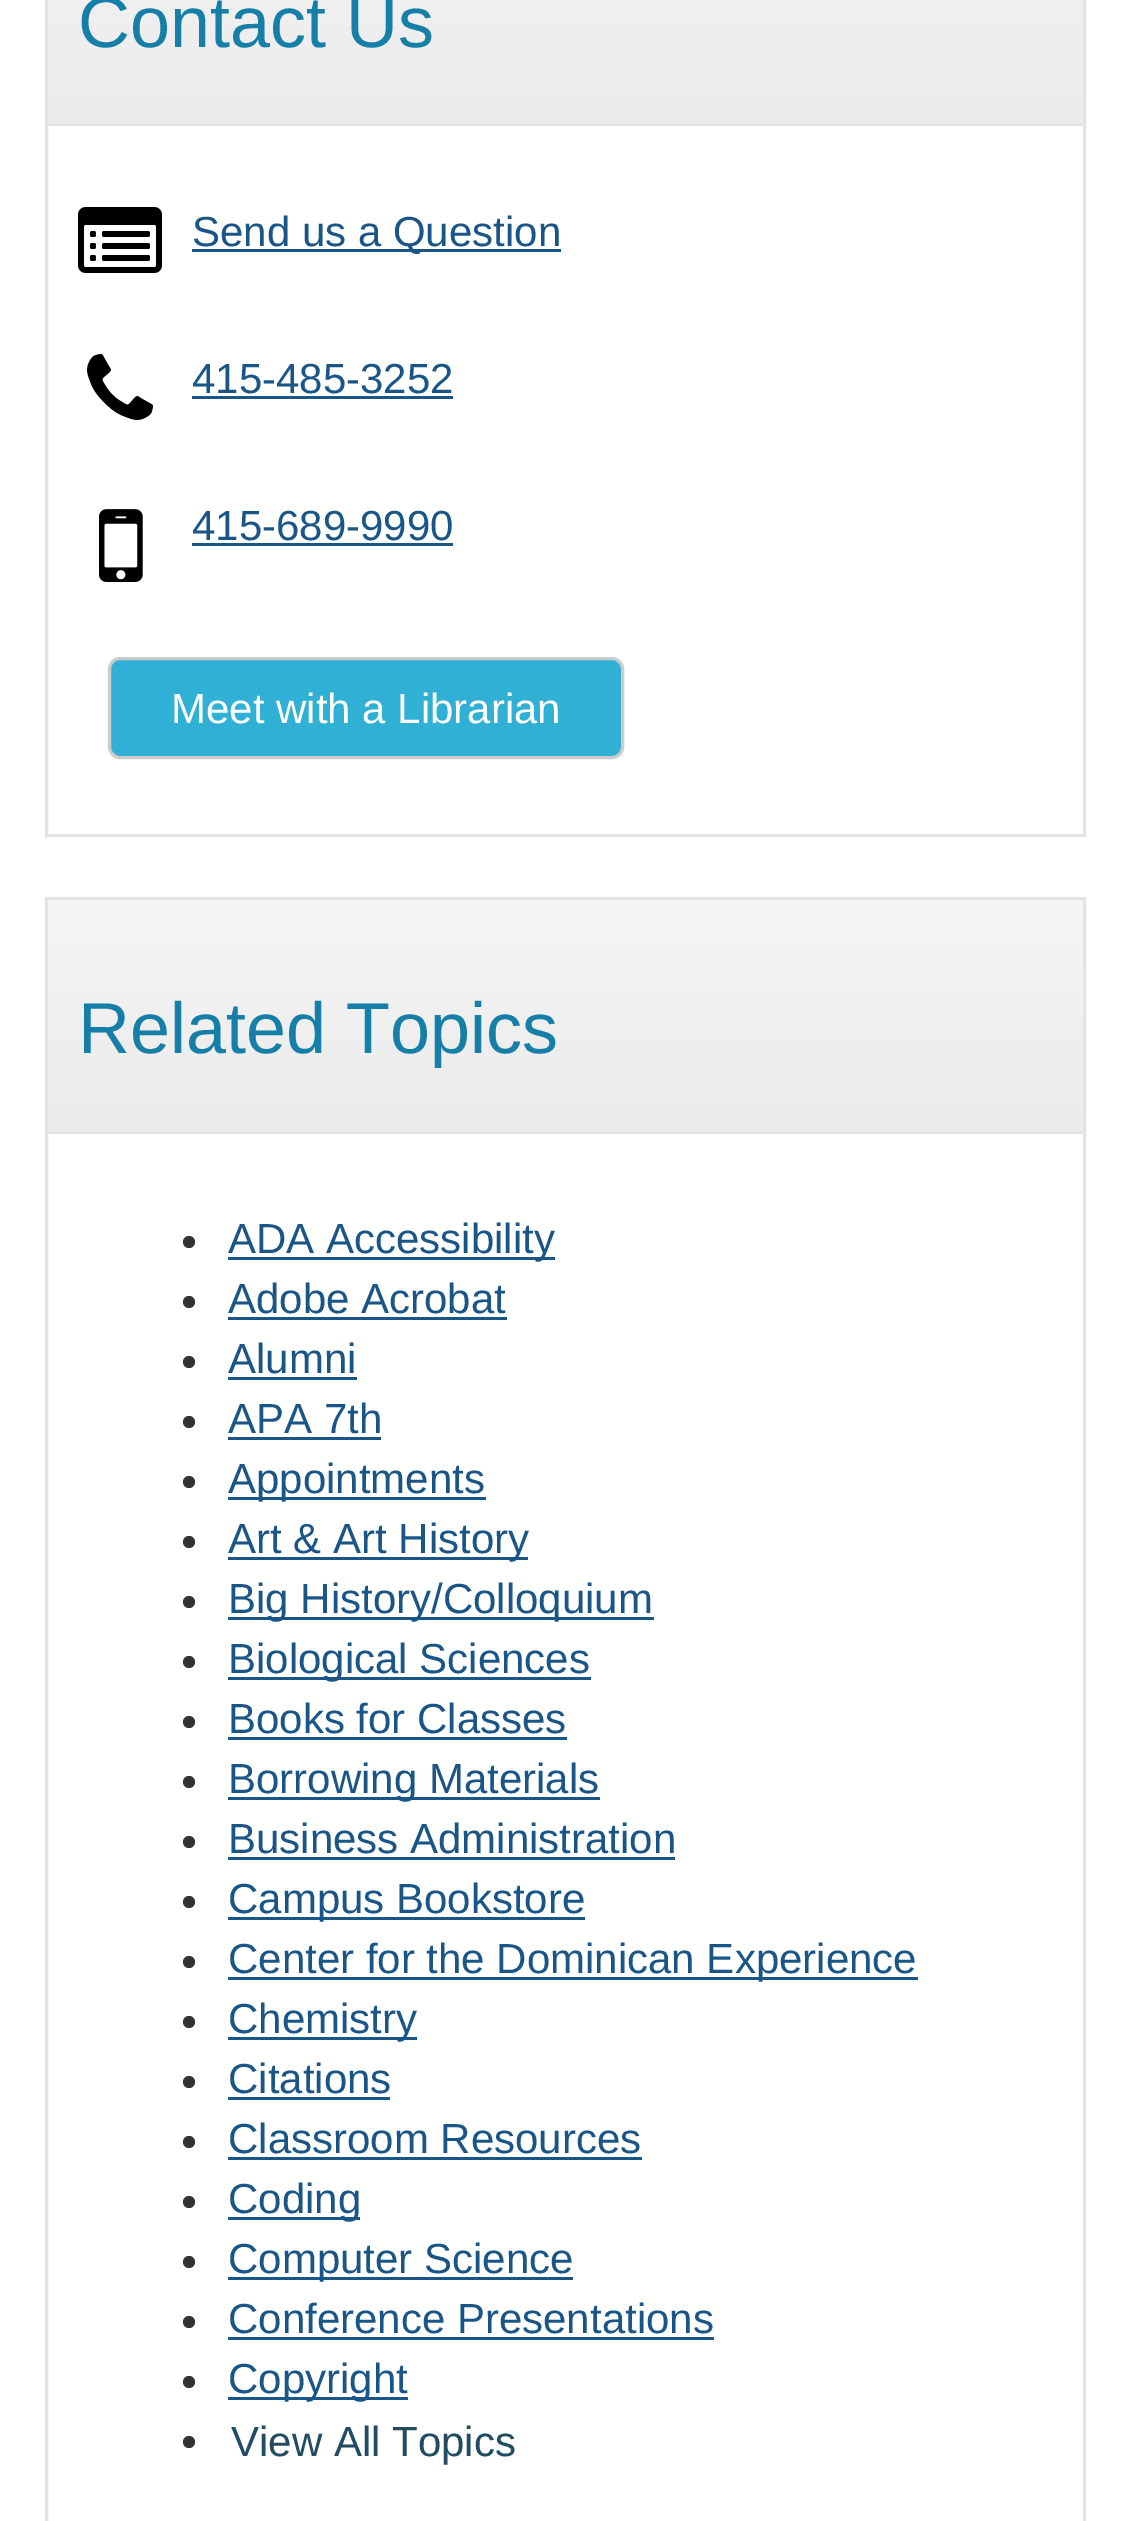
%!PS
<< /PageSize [1129 2521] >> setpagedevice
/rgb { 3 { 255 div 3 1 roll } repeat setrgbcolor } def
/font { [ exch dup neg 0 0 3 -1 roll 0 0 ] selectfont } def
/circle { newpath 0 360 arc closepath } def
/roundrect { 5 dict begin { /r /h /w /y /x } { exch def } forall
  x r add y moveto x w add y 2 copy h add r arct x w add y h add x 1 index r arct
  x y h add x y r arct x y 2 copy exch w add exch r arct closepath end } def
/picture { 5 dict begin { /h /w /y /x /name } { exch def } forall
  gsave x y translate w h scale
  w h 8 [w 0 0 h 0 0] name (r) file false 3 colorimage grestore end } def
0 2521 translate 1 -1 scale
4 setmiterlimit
255 255 255 rgb
0 0 1129 2521 rectfill
227 227 227 rgb
3 setlinewidth
46.5 -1.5 1038 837 rectstroke
gsave 48 0 moveto 1083 0 lineto 1083 123 lineto 48 123 lineto closepath clip newpath
<< /ShadingType 2 /ColorSpace /DeviceRGB /Coords [566 -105 566 123] /Extend [true true] /Function << /FunctionType 2 /Domain [0 1] /C0 [0.961 0.961 0.961] /C1 [0.922 0.922 0.922] /N 1 >> >> shfill grestore
48 123 1035 3 rectfill
(img/1.rgb) 78 207 84 66 picture
26 85 136 rgb
192 249 369 3 rectfill
(img/2.rgb) 87 354 66 66 picture
192 396 261 3 rectfill
(img/3.rgb) 99 509 44 73 picture
192 543 261 3 rectfill
49 176 213 rgb
109.5 658.5 513 99 10.5 roundrect gsave fill grestore
204 204 204 rgb
stroke
227 227 227 rgb
46.5 898.5 1038 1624 rectstroke
gsave 48 900 moveto 1083 900 lineto 1083 1131 lineto 48 1131 lineto closepath clip newpath
<< /ShadingType 2 /ColorSpace /DeviceRGB /Coords [566 900 566 1131] /Extend [true true] /Function << /FunctionType 2 /Domain [0 1] /C0 [0.961 0.961 0.961] /C1 [0.922 0.922 0.922] /N 1 >> >> shfill grestore
48 1131 1035 3 rectfill
51 51 51 rgb
189 1242 6 circle fill
26 85 136 rgb
228 1257 327 3 rectfill
51 51 51 rgb
189 1302 6 circle fill
26 85 136 rgb
228 1317 279 3 rectfill
51 51 51 rgb
189 1362 6 circle fill
26 85 136 rgb
228 1377 129 3 rectfill
51 51 51 rgb
189 1422 6 circle fill
26 85 136 rgb
228 1437 153 3 rectfill
51 51 51 rgb
189 1482 6 circle fill
26 85 136 rgb
228 1497 258 3 rectfill
51 51 51 rgb
189 1542 6 circle fill
26 85 136 rgb
228 1557 300 3 rectfill
51 51 51 rgb
189 1602 6 circle fill
26 85 136 rgb
228 1617 426 3 rectfill
51 51 51 rgb
189 1662 6 circle fill
26 85 136 rgb
228 1677 363 3 rectfill
51 51 51 rgb
189 1722 6 circle fill
26 85 136 rgb
228 1737 339 3 rectfill
51 51 51 rgb
189 1782 6 circle fill
26 85 136 rgb
228 1797 372 3 rectfill
51 51 51 rgb
189 1842 6 circle fill
26 85 136 rgb
228 1857 447 3 rectfill
51 51 51 rgb
189 1902 6 circle fill
26 85 136 rgb
228 1917 357 3 rectfill
51 51 51 rgb
189 1962 6 circle fill
26 85 136 rgb
228 1977 690 3 rectfill
51 51 51 rgb
189 2022 6 circle fill
26 85 136 rgb
228 2037 189 3 rectfill
51 51 51 rgb
189 2082 6 circle fill
26 85 136 rgb
228 2097 162 3 rectfill
51 51 51 rgb
189 2142 6 circle fill
26 85 136 rgb
228 2157 414 3 rectfill
51 51 51 rgb
189 2202 6 circle fill
26 85 136 rgb
228 2217 132 3 rectfill
51 51 51 rgb
189 2262 6 circle fill
26 85 136 rgb
228 2277 345 3 rectfill
51 51 51 rgb
189 2322 6 circle fill
26 85 136 rgb
228 2337 486 3 rectfill
51 51 51 rgb
189 2382 6 circle fill
26 85 136 rgb
228 2397 180 3 rectfill
51 51 51 rgb
189 2442 6 circle fill
/LiberationSans-Regular 72 font
22 127 168 rgb
78 47 moveto (Contact Us) show
/LiberationSans-Regular 42 font
26 85 136 rgb
[
  [(Send us a Question) 192 246]
  [(415-485-3252) 192 393]
  [(415-689-9990) 192 540]
] { aload pop moveto show } forall
255 255 255 rgb
171 723 moveto (Meet with a Librarian) show
/LiberationSans-Regular 72 font
22 127 168 rgb
78 1053 moveto (Related Topics) show
/LiberationSans-Regular 42 font
26 85 136 rgb
[
  [(ADA Accessibility) 228 1253]
  [(Adobe Acrobat) 228 1313]
  [(Alumni) 228 1373]
  [(APA 7th) 228 1433]
  [(Appointments) 228 1493]
  [(Art & Art History) 228 1553]
  [(Big History/Colloquium) 228 1613]
  [(Biological Sciences) 228 1673]
  [(Books for Classes) 228 1733]
  [(Borrowing Materials) 228 1793]
  [(Business Administration) 228 1853]
  [(Campus Bookstore) 228 1913]
  [(Center for the Dominican Experience) 228 1973]
  [(Chemistry) 228 2033]
  [(Citations) 228 2093]
  [(Classroom Resources) 228 2153]
  [(Coding) 228 2213]
  [(Computer Science) 228 2273]
  [(Conference Presentations) 228 2333]
  [(Copyright) 228 2393]
] { aload pop moveto show } forall
33 76 98 rgb
231 2456 moveto (View All Topics) show
showpage
